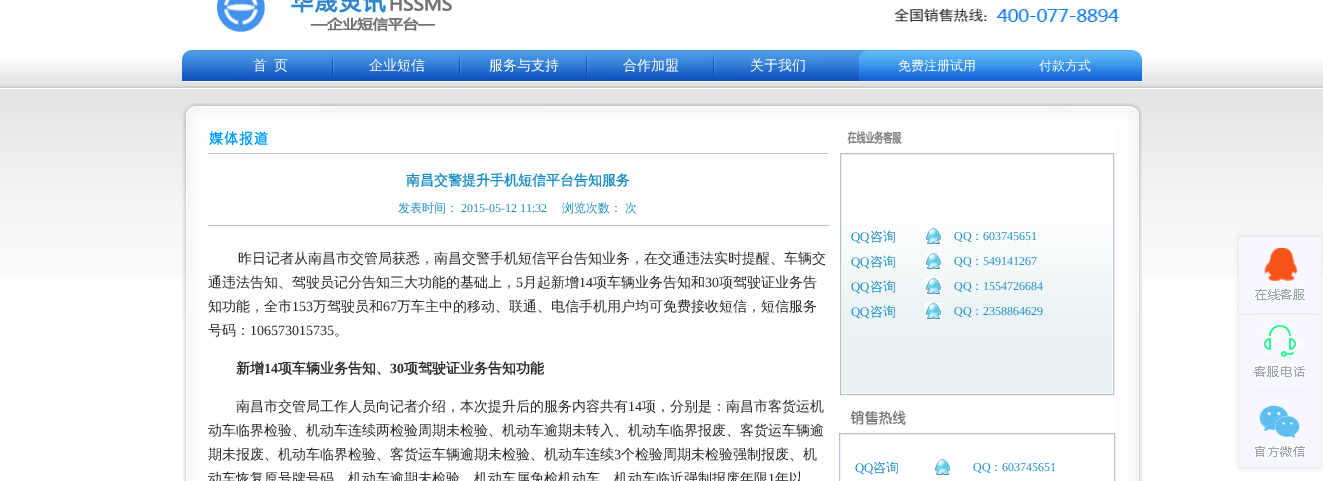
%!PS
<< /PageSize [1323 481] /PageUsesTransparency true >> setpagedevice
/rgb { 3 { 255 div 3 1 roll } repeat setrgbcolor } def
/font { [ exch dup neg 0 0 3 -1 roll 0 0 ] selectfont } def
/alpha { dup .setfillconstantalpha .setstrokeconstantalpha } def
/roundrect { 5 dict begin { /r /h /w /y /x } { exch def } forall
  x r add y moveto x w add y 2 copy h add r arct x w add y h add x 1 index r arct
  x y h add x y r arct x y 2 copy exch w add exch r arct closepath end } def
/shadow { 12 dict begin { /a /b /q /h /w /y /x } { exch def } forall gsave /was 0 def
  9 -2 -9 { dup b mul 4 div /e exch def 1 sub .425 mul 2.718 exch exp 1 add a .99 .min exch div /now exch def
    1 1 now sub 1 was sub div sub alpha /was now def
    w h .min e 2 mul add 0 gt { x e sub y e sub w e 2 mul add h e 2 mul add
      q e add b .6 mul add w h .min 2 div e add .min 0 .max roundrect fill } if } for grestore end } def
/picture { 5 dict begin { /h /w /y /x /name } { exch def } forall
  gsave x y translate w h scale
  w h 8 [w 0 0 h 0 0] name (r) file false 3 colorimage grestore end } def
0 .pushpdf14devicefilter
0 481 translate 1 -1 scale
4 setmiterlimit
255 255 255 rgb
0 0 1323 481 rectfill
(img/1.rgb) 0 60 1323 216 picture
(img/2.rgb) 217 0 48 32 picture
(img/3.rgb) 288 0 164 31 picture
(img/4.rgb) 894 8 225 14 picture
(img/5.rgb) 197 50 10 32 picture
(img/6.rgb) 182 50 15 32 picture
(img/7.rgb) 207 50 652 32 picture
(img/8.rgb) 859 50 14 32 picture
(img/9.rgb) 873 50 256 32 picture
(img/10.rgb) 1129 50 13 32 picture
(img/11.rgb) 182 103 960 20 picture
(img/12.rgb) 182 332 26 149 picture
208 123 908 153 rectfill
(img/14.rgb) 209 131 59 15 picture
195 195 195 rgb
208 153 620 1 rectfill
193 192 191 rgb
208 225 622 1 rectfill
(img/15.rgb) 847 131 55 13 picture
(img/16.rgb) 842 158 270 235 picture
184 192 211 rgb
840.5 153.5 273 241 rectstroke
(img/17.rgb) 925 228 17 17 picture
(img/17.rgb) 925 253 17 17 picture
(img/17.rgb) 925 278 17 17 picture
(img/17.rgb) 925 303 17 17 picture
(img/18.rgb) 850 410 56 15 picture
839.5 433.5 275 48 rectstroke
(img/17.rgb) 934 459 17 17 picture
(img/19.rgb) 1116 123 26 358 picture
(img/20.rgb) 1139 123 3 209 picture
221 221 221 rgb
1239 314 82 154 0 2.5 1 shadow
(img/22.rgb) 1239 313 82 76 picture
1239 236 82 76 0 2.5 1 shadow
(img/21.rgb) 1239 237 82 76 picture
(img/23.rgb) 1239 389 82 78 picture
/WenQuanYiZenHei-Medium 14 font
255 255 255 rgb
[
  [(首) 253 70]
  [(页) 274 70]
  [(企业短信) 369 70]
  [(服务与支持) 489 70]
  [(合作加盟) 623 70]
  [(关于我们) 750 70]
] { aload pop moveto show } forall
/WenQuanYiZenHei-Medium 13 font
898 70 moveto (免费注册试用) show
1039 70 moveto (付款方式) show
/WenQuanYiZenHei-Bold 14 font
27 142 199 rgb
406 185 moveto (南昌交警提升手机短信平台告知服务) show
/WenQuanYiZenHei-Medium 12 font
398 212 moveto (发表时间：) show
/LiberationSerif-Regular 12 font
461 212 moveto (2015-05-12 11:32) show
/WenQuanYiZenHei-Medium 12 font
562 212 moveto (浏览次数：) show
625 212 moveto (次) show
/WenQuanYiZenHei-Medium 14 font
43 43 43 rgb
238 263 moveto (昨日记者从南昌市交管局获悉，南昌交警手机短信平台告知业务，在交通违法实时提醒、车辆交) show
208 287 moveto (通违法告知、驾驶员记分告知三大功能的基础上，) show
/LiberationSerif-Regular 14 font
516 287 moveto (5) show
/WenQuanYiZenHei-Medium 14 font
523 287 moveto (月起新增) show
/LiberationSerif-Regular 14 font
579 287 moveto (14) show
/WenQuanYiZenHei-Medium 14 font
593 287 moveto (项车辆业务告知和) show
/LiberationSerif-Regular 14 font
705 287 moveto (30) show
/WenQuanYiZenHei-Medium 14 font
719 287 moveto (项驾驶证业务告) show
208 311 moveto (知功能，全市) show
/LiberationSerif-Regular 14 font
292 311 moveto (153) show
/WenQuanYiZenHei-Medium 14 font
313 311 moveto (万驾驶员和) show
/LiberationSerif-Regular 14 font
383 311 moveto (67) show
/WenQuanYiZenHei-Medium 14 font
397 311 moveto (万车主中的移动、联通、电信手机用户均可免费接收短信，短信服务) show
208 335 moveto (号码：) show
(img/13.rgb) 182 123 26 209 picture
/LiberationSerif-Regular 14 font
250 335 moveto (106573015735) show
/WenQuanYiZenHei-Medium 14 font
334 335 moveto (。) show
/WenQuanYiZenHei-Bold 14 font
236 373 moveto (新增) show
/LiberationSerif-Bold 14 font
264 373 moveto (14) show
/WenQuanYiZenHei-Bold 14 font
278 373 moveto (项车辆业务告知、) show
/LiberationSerif-Bold 14 font
390 373 moveto (30) show
/WenQuanYiZenHei-Bold 14 font
404 373 moveto (项驾驶证业务告知功能) show
/WenQuanYiZenHei-Medium 14 font
236 411 moveto (南昌市交管局工作人员向记者介绍，本次提升后的服务内容共有) show
/LiberationSerif-Regular 14 font
628 411 moveto (14) show
/WenQuanYiZenHei-Medium 14 font
[
  [(项，分别是：南昌市客货运机) 642 411]
  [(动车临界检验、机动车连续两检验周期未检验、机动车逾期未转入、机动车临界报废、客货运车辆逾) 208 435]
  [(期未报废、机动车临界检验、客货运车辆逾期未检验、机动车连续) 208 459]
] { aload pop moveto show } forall
/LiberationSerif-Regular 14 font
614 459 moveto (3) show
/WenQuanYiZenHei-Medium 14 font
621 459 moveto (个检验周期未检验强制报废、机) show
208 483 moveto (动车恢复原号牌号码、机动车逾期未检验、机动车属免检机动车、机动车临近强制报废年限) show
/LiberationSerif-Regular 14 font
768 483 moveto (1) show
/WenQuanYiZenHei-Medium 14 font
775 483 moveto (年以) show
/LiberationSerif-Regular 13 font
27 142 199 rgb
851 241 moveto (QQ) show
/WenQuanYiZenHei-Medium 13 font
870 241 moveto (咨询) show
/LiberationSerif-Regular 12 font
954 240 moveto (QQ) show
/WenQuanYiZenHei-Medium 12 font
971 240 moveto (：) show
/LiberationSerif-Regular 12 font
983 240 moveto (603745651) show
/LiberationSerif-Regular 13 font
851 266 moveto (QQ) show
/WenQuanYiZenHei-Medium 13 font
870 266 moveto (咨询) show
/LiberationSerif-Regular 12 font
954 265 moveto (QQ) show
/WenQuanYiZenHei-Medium 12 font
971 265 moveto (：) show
/LiberationSerif-Regular 12 font
983 265 moveto (549141267) show
/LiberationSerif-Regular 13 font
851 291 moveto (QQ) show
/WenQuanYiZenHei-Medium 13 font
870 291 moveto (咨询) show
/LiberationSerif-Regular 12 font
954 290 moveto (QQ) show
/WenQuanYiZenHei-Medium 12 font
971 290 moveto (：) show
/LiberationSerif-Regular 12 font
983 290 moveto (1554726684) show
/LiberationSerif-Regular 13 font
851 316 moveto (QQ) show
/WenQuanYiZenHei-Medium 13 font
870 316 moveto (咨询) show
/LiberationSerif-Regular 12 font
954 315 moveto (QQ) show
/WenQuanYiZenHei-Medium 12 font
971 315 moveto (：) show
/LiberationSerif-Regular 12 font
983 315 moveto (2358864629) show
/LiberationSerif-Regular 13 font
855 472 moveto (QQ) show
/WenQuanYiZenHei-Medium 13 font
873 472 moveto (咨询) show
/LiberationSerif-Regular 12 font
973 471 moveto (QQ) show
/WenQuanYiZenHei-Medium 12 font
990 471 moveto (：) show
/LiberationSerif-Regular 12 font
1002 471 moveto (603745651) show
.poppdf14devicefilter showpage
